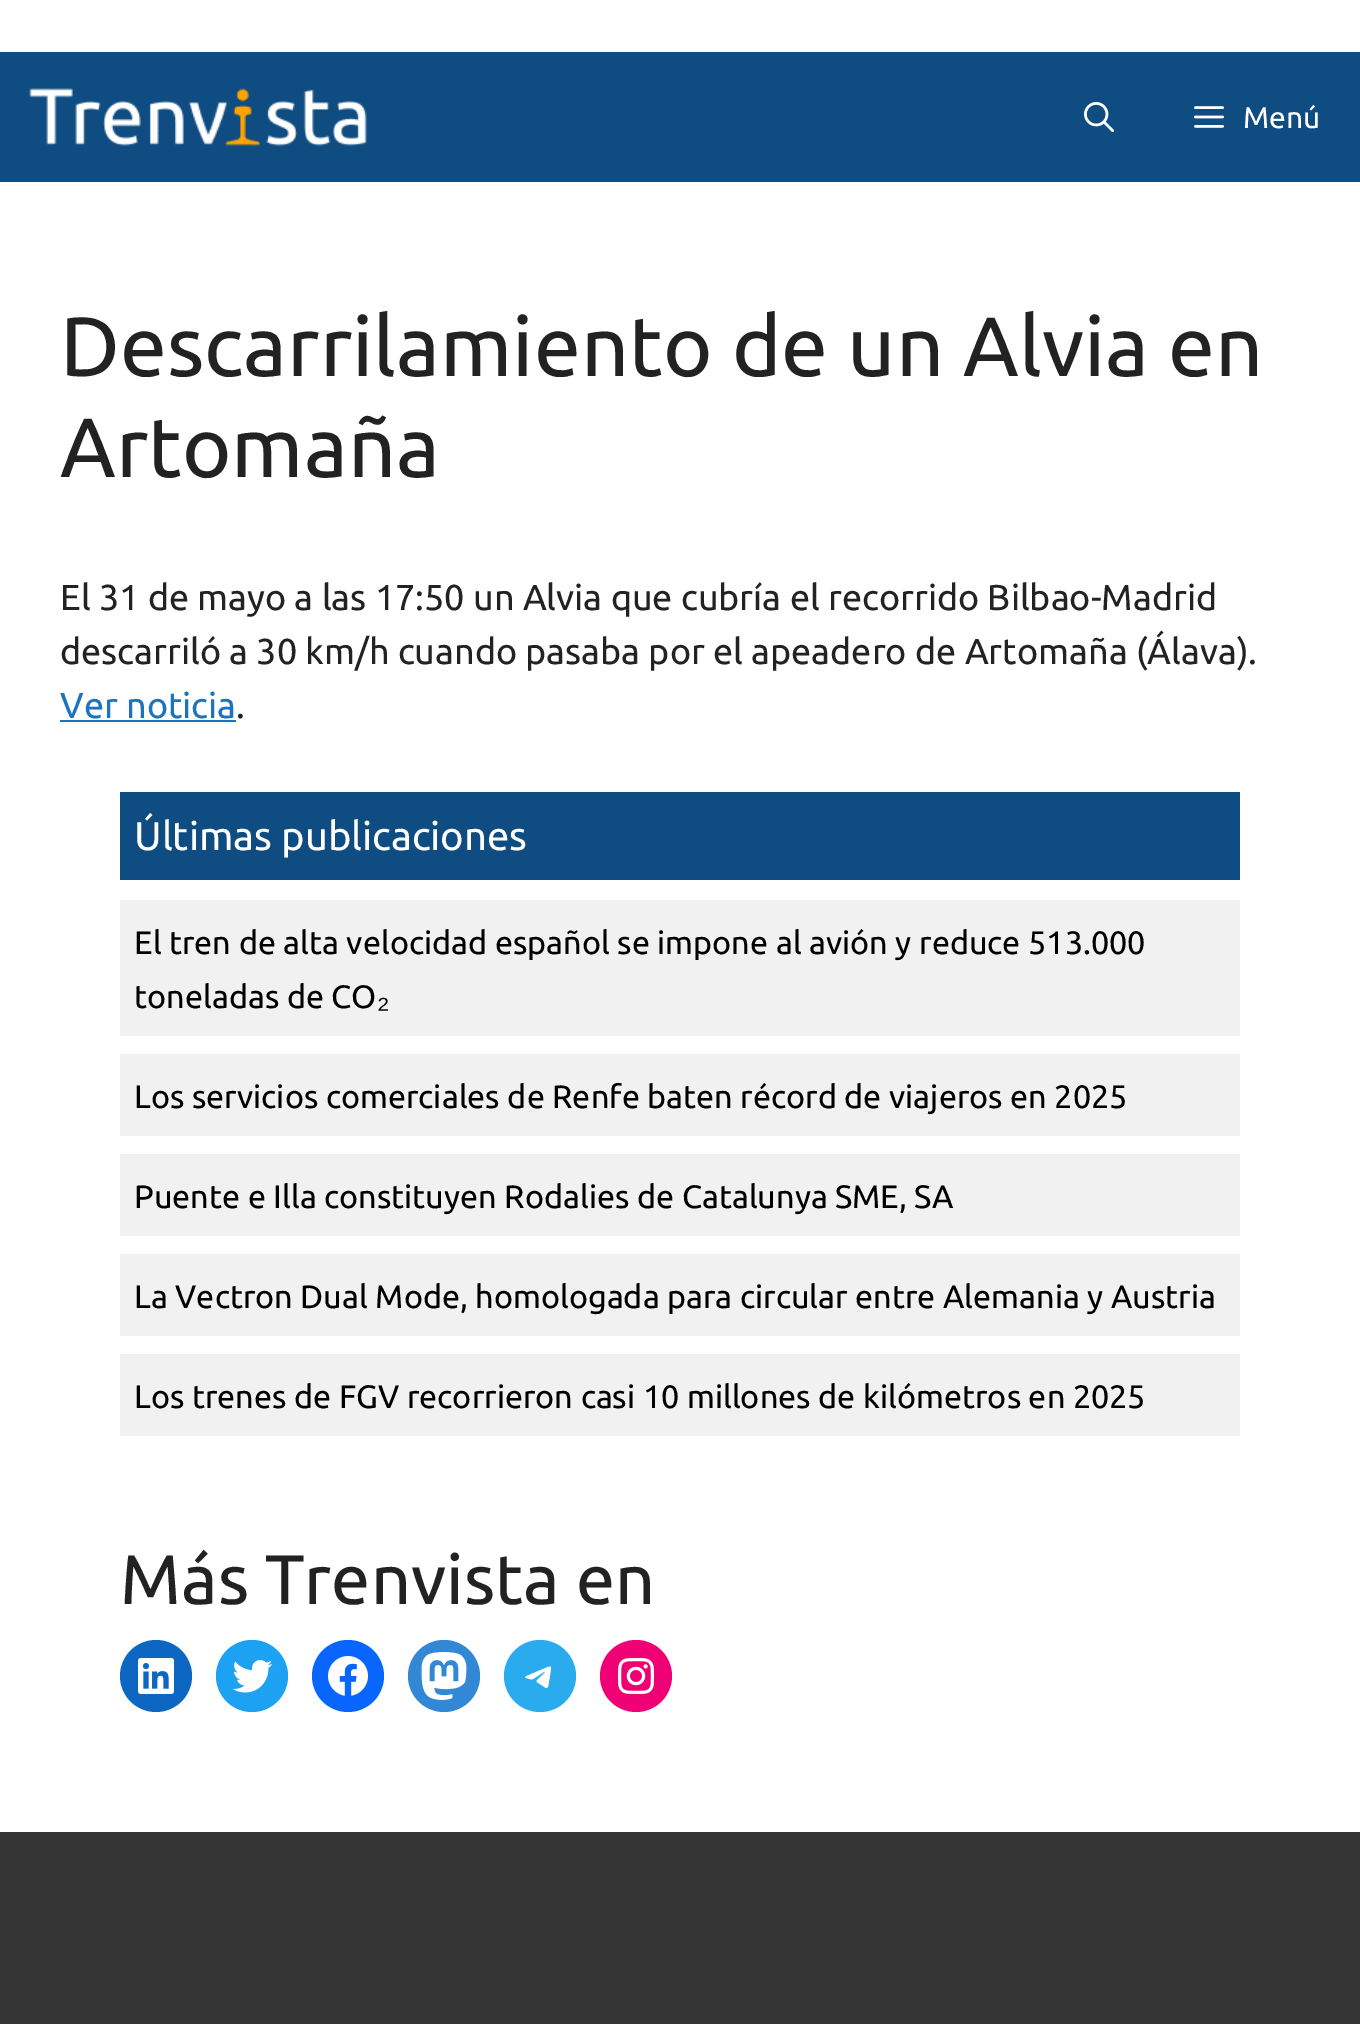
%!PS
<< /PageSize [1360 2024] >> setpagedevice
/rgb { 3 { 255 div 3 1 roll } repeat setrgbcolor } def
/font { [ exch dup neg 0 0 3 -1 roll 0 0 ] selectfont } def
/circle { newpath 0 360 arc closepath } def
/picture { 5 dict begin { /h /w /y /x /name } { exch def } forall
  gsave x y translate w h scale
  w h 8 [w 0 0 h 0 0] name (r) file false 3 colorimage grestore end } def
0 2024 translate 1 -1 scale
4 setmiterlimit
255 255 255 rgb
0 0 1360 2024 rectfill
15 76 129 rgb
0 52 1360 130 rectfill
(img/1.rgb) 29 88 338 58 picture
(img/2.rgb) 1084 102 30 30 picture
(img/3.rgb) 1194 106 30 22 picture
[
  [60 720 176 2 30 115 190]
  [120 792 1120 88 15 76 129]
  [120 900 1120 136 241 241 241]
  [120 1054 1120 82 241 241 241]
  [120 1154 1120 82 241 241 241]
  [120 1254 1120 82 241 241 241]
  [120 1354 1120 82 241 241 241]
] { aload pop rgb rectfill } forall
13 102 194 rgb
156 1676 36 circle fill
(img/4.rgb) 138 1658 36 36 picture
29 161 242 rgb
252 1676 36 circle fill
(img/5.rgb) 232 1660 41 33 picture
8 102 255 rgb
348 1676 36 circle fill
(img/6.rgb) 328 1656 40 40 picture
50 136 212 rgb
444 1676 36 circle fill
(img/7.rgb) 421 1652 46 48 picture
42 171 238 rgb
540 1676 36 circle fill
(img/8.rgb) 525 1666 27 22 picture
240 0 117 rgb
636 1676 36 circle fill
(img/9.rgb) 618 1658 36 36 picture
53 53 53 rgb
0 1832 1360 192 rectfill
/Ubuntu-Regular 30 font
255 255 255 rgb
1243 128 moveto (Menú) show
/Ubuntu-Regular 84 font
34 34 34 rgb
60 376 moveto (Descarrilamiento de un Alvia en) show
60 477 moveto (Artomaña) show
/Ubuntu-Regular 36 font
60 610 moveto (El 31 de mayo a las 17:50 un Alvia que cubría el recorrido Bilbao-Madrid) show
60 664 moveto (descarriló a 30 km/h cuando pasaba por el apeadero de Artomaña \(Álava\).) show
30 115 190 rgb
60 718 moveto (Ver noticia) show
34 34 34 rgb
236 718 moveto (.) show
/Ubuntu-Regular 40 font
255 255 255 rgb
134 850 moveto (Últimas publicaciones) show
/Ubuntu-Regular 32.4 font
0 0 0 rgb
134 954 moveto (El tren de alta velocidad español se impone al avión y reduce 513.000) show
134 1008 moveto (toneladas de CO) show
/LiberationSans-Regular 32.4 font
377 1008 moveto (₂) show
/Ubuntu-Regular 32.4 font
[
  [(Los servicios comerciales de Renfe baten récord de viajeros en 2025) 134 1108]
  [(Puente e Illa constituyen Rodalies de Catalunya SME, SA) 134 1208]
  [(La Vectron Dual Mode, homologada para circular entre Alemania y Austria) 134 1308]
  [(Los trenes de FGV recorrieron casi 10 millones de kilómetros en 2025) 134 1408]
] { aload pop moveto show } forall
/Ubuntu-Regular 70 font
34 34 34 rgb
120 1604 moveto (Más Trenvista en) show
showpage
